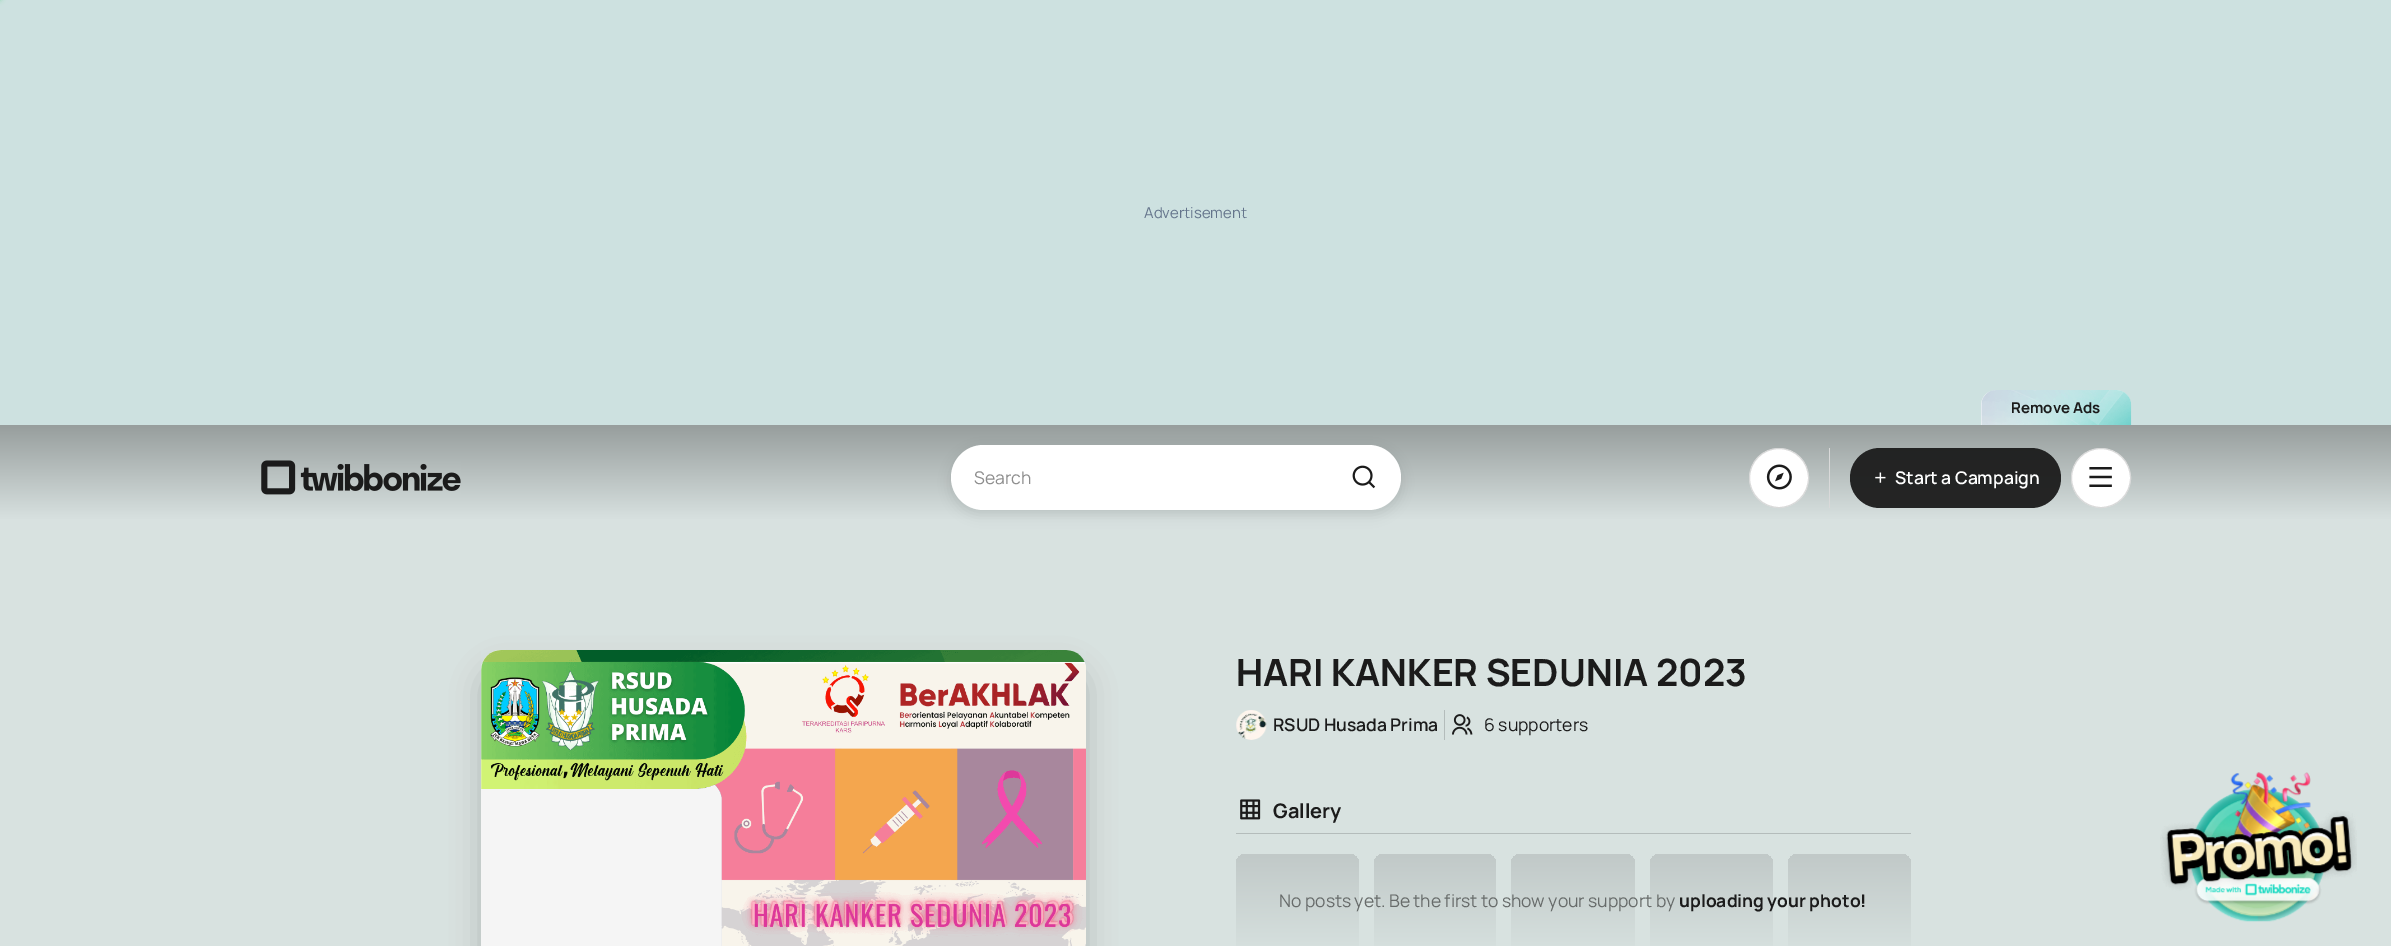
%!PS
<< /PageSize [2391 946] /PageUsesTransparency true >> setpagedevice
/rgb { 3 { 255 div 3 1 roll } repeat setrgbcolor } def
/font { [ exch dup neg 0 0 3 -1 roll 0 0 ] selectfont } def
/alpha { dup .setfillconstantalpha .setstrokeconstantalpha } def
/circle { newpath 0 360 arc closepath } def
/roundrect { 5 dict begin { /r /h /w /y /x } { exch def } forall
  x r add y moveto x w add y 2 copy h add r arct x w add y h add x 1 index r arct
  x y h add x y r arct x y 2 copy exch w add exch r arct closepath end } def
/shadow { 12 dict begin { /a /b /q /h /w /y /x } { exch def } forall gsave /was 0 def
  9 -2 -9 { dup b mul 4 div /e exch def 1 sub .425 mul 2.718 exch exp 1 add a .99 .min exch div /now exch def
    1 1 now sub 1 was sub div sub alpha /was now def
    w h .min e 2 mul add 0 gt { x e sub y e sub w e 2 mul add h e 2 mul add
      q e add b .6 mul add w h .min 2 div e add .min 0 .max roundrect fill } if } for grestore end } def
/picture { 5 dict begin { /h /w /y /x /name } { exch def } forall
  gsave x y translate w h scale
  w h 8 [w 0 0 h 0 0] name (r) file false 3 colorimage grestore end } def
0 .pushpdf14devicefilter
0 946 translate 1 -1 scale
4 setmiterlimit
205 225 224 rgb
0 0 2391 946 rectfill
103 211 145 rgb
-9 -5 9 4 0 3 1 shadow
255 255 255 rgb
1996 390 moveto 2116 390 lineto 2124.5 390 2131 396.5 2131 405 curveto 2131 425 lineto 1981 425 lineto 1981 405 lineto 1981 396.5 1987.5 390 1996 390 curveto closepath fill
(img/1.rgb) 1981 390 151 35 picture
gsave 0 425 moveto 2391 425 lineto 2391 530 lineto 0 530 lineto closepath clip newpath
<< /ShadingType 2 /ColorSpace /DeviceRGB /Coords [1196 425 1196 530] /Extend [true true] /Function << /FunctionType 3 /Domain [0 1] /Functions [<< /FunctionType 2 /Domain [0 1] /C0 [0.592 0.62 0.616] /C1 [0.847 0.882 0.878] /N 1 >> << /FunctionType 2 /Domain [0 1] /C0 [0.847 0.882 0.878] /C1 [0.847 0.882 0.878] /N 1 >>] /Bounds [0.9] /Encode [0 1 0 1] >> >> shfill grestore
(img/2.rgb) 261 460 200 35 picture
216 226 224 rgb
0 530 2391 416 rectfill
0 0 0 rgb
951 450 450 65 32.5 6 0.1 shadow
255 255 255 rgb
951 445 450 65 32.5 roundrect fill
(img/3.rgb) 1352 465 24 24 picture
217 217 217 rgb
1829 448 1 60 rectfill
255 255 255 rgb
1779 478 29.5 circle gsave fill grestore
217 217 217 rgb
stroke
(img/4.rgb) 1766 464 26 26 picture
0.95 alpha
27 27 27 rgb
1850 448 211 60 30 roundrect fill
1 alpha
(img/5.rgb) 1875 472 11 11 picture
255 255 255 rgb
2101 478 29.5 circle gsave fill grestore
217 217 217 rgb
stroke
(img/6.rgb) 2089 467 23 20 picture
27 27 27 rgb
481 668 605 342 20 14.5 0.2 shadow
245 245 245 rgb
481 650 605 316 20 roundrect fill
(img/7.rgb) 481 650 605 296 picture
(img/8.rgb) 1236 710 31 30 picture
180 188 187 rgb
1444 710 1 30 rectfill
(img/9.rgb) 1452 714 21 21 picture
1236 833 675 1 rectfill
(img/10.rgb) 1240 799 21 21 picture
gsave 1236 854 123 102 10 roundrect clip newpath
<< /ShadingType 2 /ColorSpace /DeviceRGB /Coords [1298 788 1298 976] /Extend [true true] /Function << /FunctionType 3 /Domain [0 1] /Functions [<< /FunctionType 2 /Domain [0 1] /C0 [0.698 0.729 0.725] /C1 [0.847 0.886 0.878] /N 1 >> << /FunctionType 2 /Domain [0 1] /C0 [0.847 0.886 0.878] /C1 [0.847 0.886 0.878] /N 1 >>] /Bounds [0.91] /Encode [0 1 0 1] >> >> shfill grestore
gsave 1374 854 122 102 10 roundrect clip newpath
<< /ShadingType 2 /ColorSpace /DeviceRGB /Coords [1435 788 1435 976] /Extend [true true] /Function << /FunctionType 3 /Domain [0 1] /Functions [<< /FunctionType 2 /Domain [0 1] /C0 [0.698 0.729 0.725] /C1 [0.847 0.886 0.878] /N 1 >> << /FunctionType 2 /Domain [0 1] /C0 [0.847 0.886 0.878] /C1 [0.847 0.886 0.878] /N 1 >>] /Bounds [0.91] /Encode [0 1 0 1] >> >> shfill grestore
gsave 1511 854 124 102 10 roundrect clip newpath
<< /ShadingType 2 /ColorSpace /DeviceRGB /Coords [1573 788 1573 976] /Extend [true true] /Function << /FunctionType 3 /Domain [0 1] /Functions [<< /FunctionType 2 /Domain [0 1] /C0 [0.698 0.729 0.725] /C1 [0.847 0.886 0.878] /N 1 >> << /FunctionType 2 /Domain [0 1] /C0 [0.847 0.886 0.878] /C1 [0.847 0.886 0.878] /N 1 >>] /Bounds [0.91] /Encode [0 1 0 1] >> >> shfill grestore
gsave 1650 854 123 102 10 roundrect clip newpath
<< /ShadingType 2 /ColorSpace /DeviceRGB /Coords [1711 788 1711 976] /Extend [true true] /Function << /FunctionType 3 /Domain [0 1] /Functions [<< /FunctionType 2 /Domain [0 1] /C0 [0.698 0.729 0.725] /C1 [0.847 0.886 0.878] /N 1 >> << /FunctionType 2 /Domain [0 1] /C0 [0.847 0.886 0.878] /C1 [0.847 0.886 0.878] /N 1 >>] /Bounds [0.91] /Encode [0 1 0 1] >> >> shfill grestore
gsave 1788 854 123 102 10 roundrect clip newpath
<< /ShadingType 2 /ColorSpace /DeviceRGB /Coords [1849 788 1849 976] /Extend [true true] /Function << /FunctionType 3 /Domain [0 1] /Functions [<< /FunctionType 2 /Domain [0 1] /C0 [0.698 0.729 0.725] /C1 [0.847 0.886 0.878] /N 1 >> << /FunctionType 2 /Domain [0 1] /C0 [0.847 0.886 0.878] /C1 [0.847 0.886 0.878] /N 1 >>] /Bounds [0.91] /Encode [0 1 0 1] >> >> shfill grestore
(img/11.rgb) 2160 772 197 150 picture
/Manrope-Regular 15 font
100 116 139 rgb
1144 218 moveto (Advertisement) show
/Manrope-Bold 15 font
27 27 27 rgb
2011 413 moveto (Remove Ads) show
/Manrope-Regular 17.5 font
141 141 141 rgb
974 484 moveto (Search) show
/Manrope-SemiBold 17.5 font
255 255 255 rgb
1895 484 moveto (Start a Campaign) show
/Manrope-Bold 37.5 font
27 27 27 rgb
1236 686 moveto (HARI KANKER SEDUNIA 2023) show
/Manrope-SemiBold 17.5 font
1273 731 moveto (RSUD Husada Prima) show
/Manrope-Regular 17.5 font
1484 731 moveto (6 supporters) show
/Manrope-Bold 20 font
1273 818 moveto (Gallery) show
/Manrope-Regular 17.5 font
103 107 106 rgb
1279 907 moveto (No posts yet. Be the first to show your support by) show
/Manrope-Bold 17.5 font
27 27 27 rgb
1679 907 moveto (uploading your photo!) show
.poppdf14devicefilter showpage
